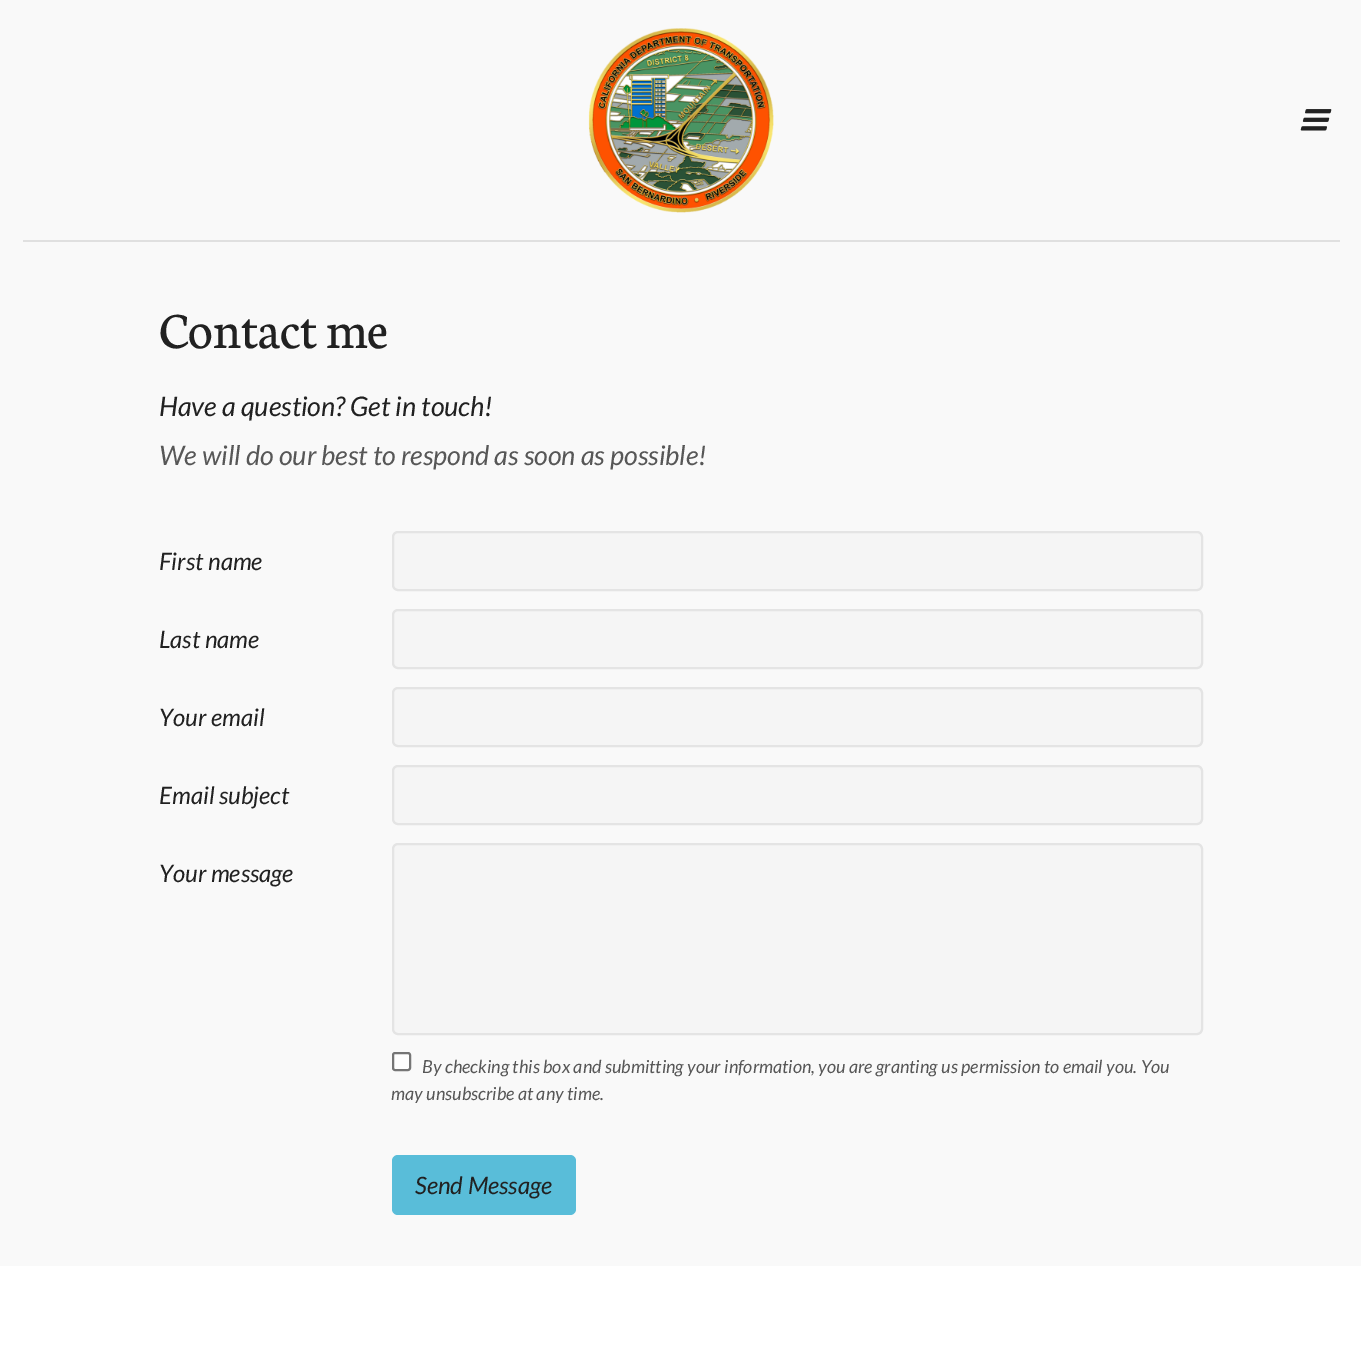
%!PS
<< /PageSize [1361 1346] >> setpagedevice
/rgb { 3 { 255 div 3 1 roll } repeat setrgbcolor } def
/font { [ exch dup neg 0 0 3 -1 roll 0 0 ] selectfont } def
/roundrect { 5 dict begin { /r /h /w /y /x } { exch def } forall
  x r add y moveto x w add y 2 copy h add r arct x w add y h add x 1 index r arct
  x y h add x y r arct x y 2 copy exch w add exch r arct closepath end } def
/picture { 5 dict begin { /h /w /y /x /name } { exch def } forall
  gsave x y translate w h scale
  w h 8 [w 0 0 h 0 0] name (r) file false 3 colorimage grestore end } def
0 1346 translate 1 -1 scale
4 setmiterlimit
255 255 255 rgb
0 0 1361 1346 rectfill
249 249 249 rgb
0 0 1361 1266 rectfill
(img/1.rgb) 588 28 186 185 picture
(img/2.rgb) 1300 109 32 22 picture
224 224 224 rgb
23 240 1317 2 rectfill
245 245 245 rgb
393 532 809 58 5 roundrect gsave fill grestore
228 228 228 rgb
2 setlinewidth
stroke
245 245 245 rgb
393 610 809 58 5 roundrect gsave fill grestore
228 228 228 rgb
stroke
245 245 245 rgb
393 688 809 58 5 roundrect gsave fill grestore
228 228 228 rgb
stroke
245 245 245 rgb
393 766 809 58 5 roundrect gsave fill grestore
228 228 228 rgb
stroke
245 245 245 rgb
393 844 809 190 5 roundrect gsave fill grestore
228 228 228 rgb
stroke
255 255 255 rgb
393 1053 17 17 2 roundrect gsave fill grestore
118 118 118 rgb
stroke
89 189 217 rgb
392 1155 184 60 6 roundrect fill
/Neuton-Regular 54 font
33 33 33 rgb
159 348 moveto (Contact me) show
/Lato-Italic 27 font
159 416 moveto (Have a question? Get in touch!) show
87 87 87 rgb
159 465 moveto (We will do our best to respond as soon as possible!) show
/Lato-Italic 24 font
33 33 33 rgb
[
  [(First name) 159 570]
  [(Last name) 159 648]
  [(Your email) 159 726]
  [(Email subject) 159 804]
  [(Your message) 159 882]
] { aload pop moveto show } forall
/Lato-Italic 18 font
87 87 87 rgb
422 1073 moveto (By checking this box and submitting your information, you are granting us permission to email you. You) show
391 1100 moveto (may unsubscribe at any time.) show
/Lato-Italic 24 font
33 33 33 rgb
415 1194 moveto (Send Message) show
showpage
